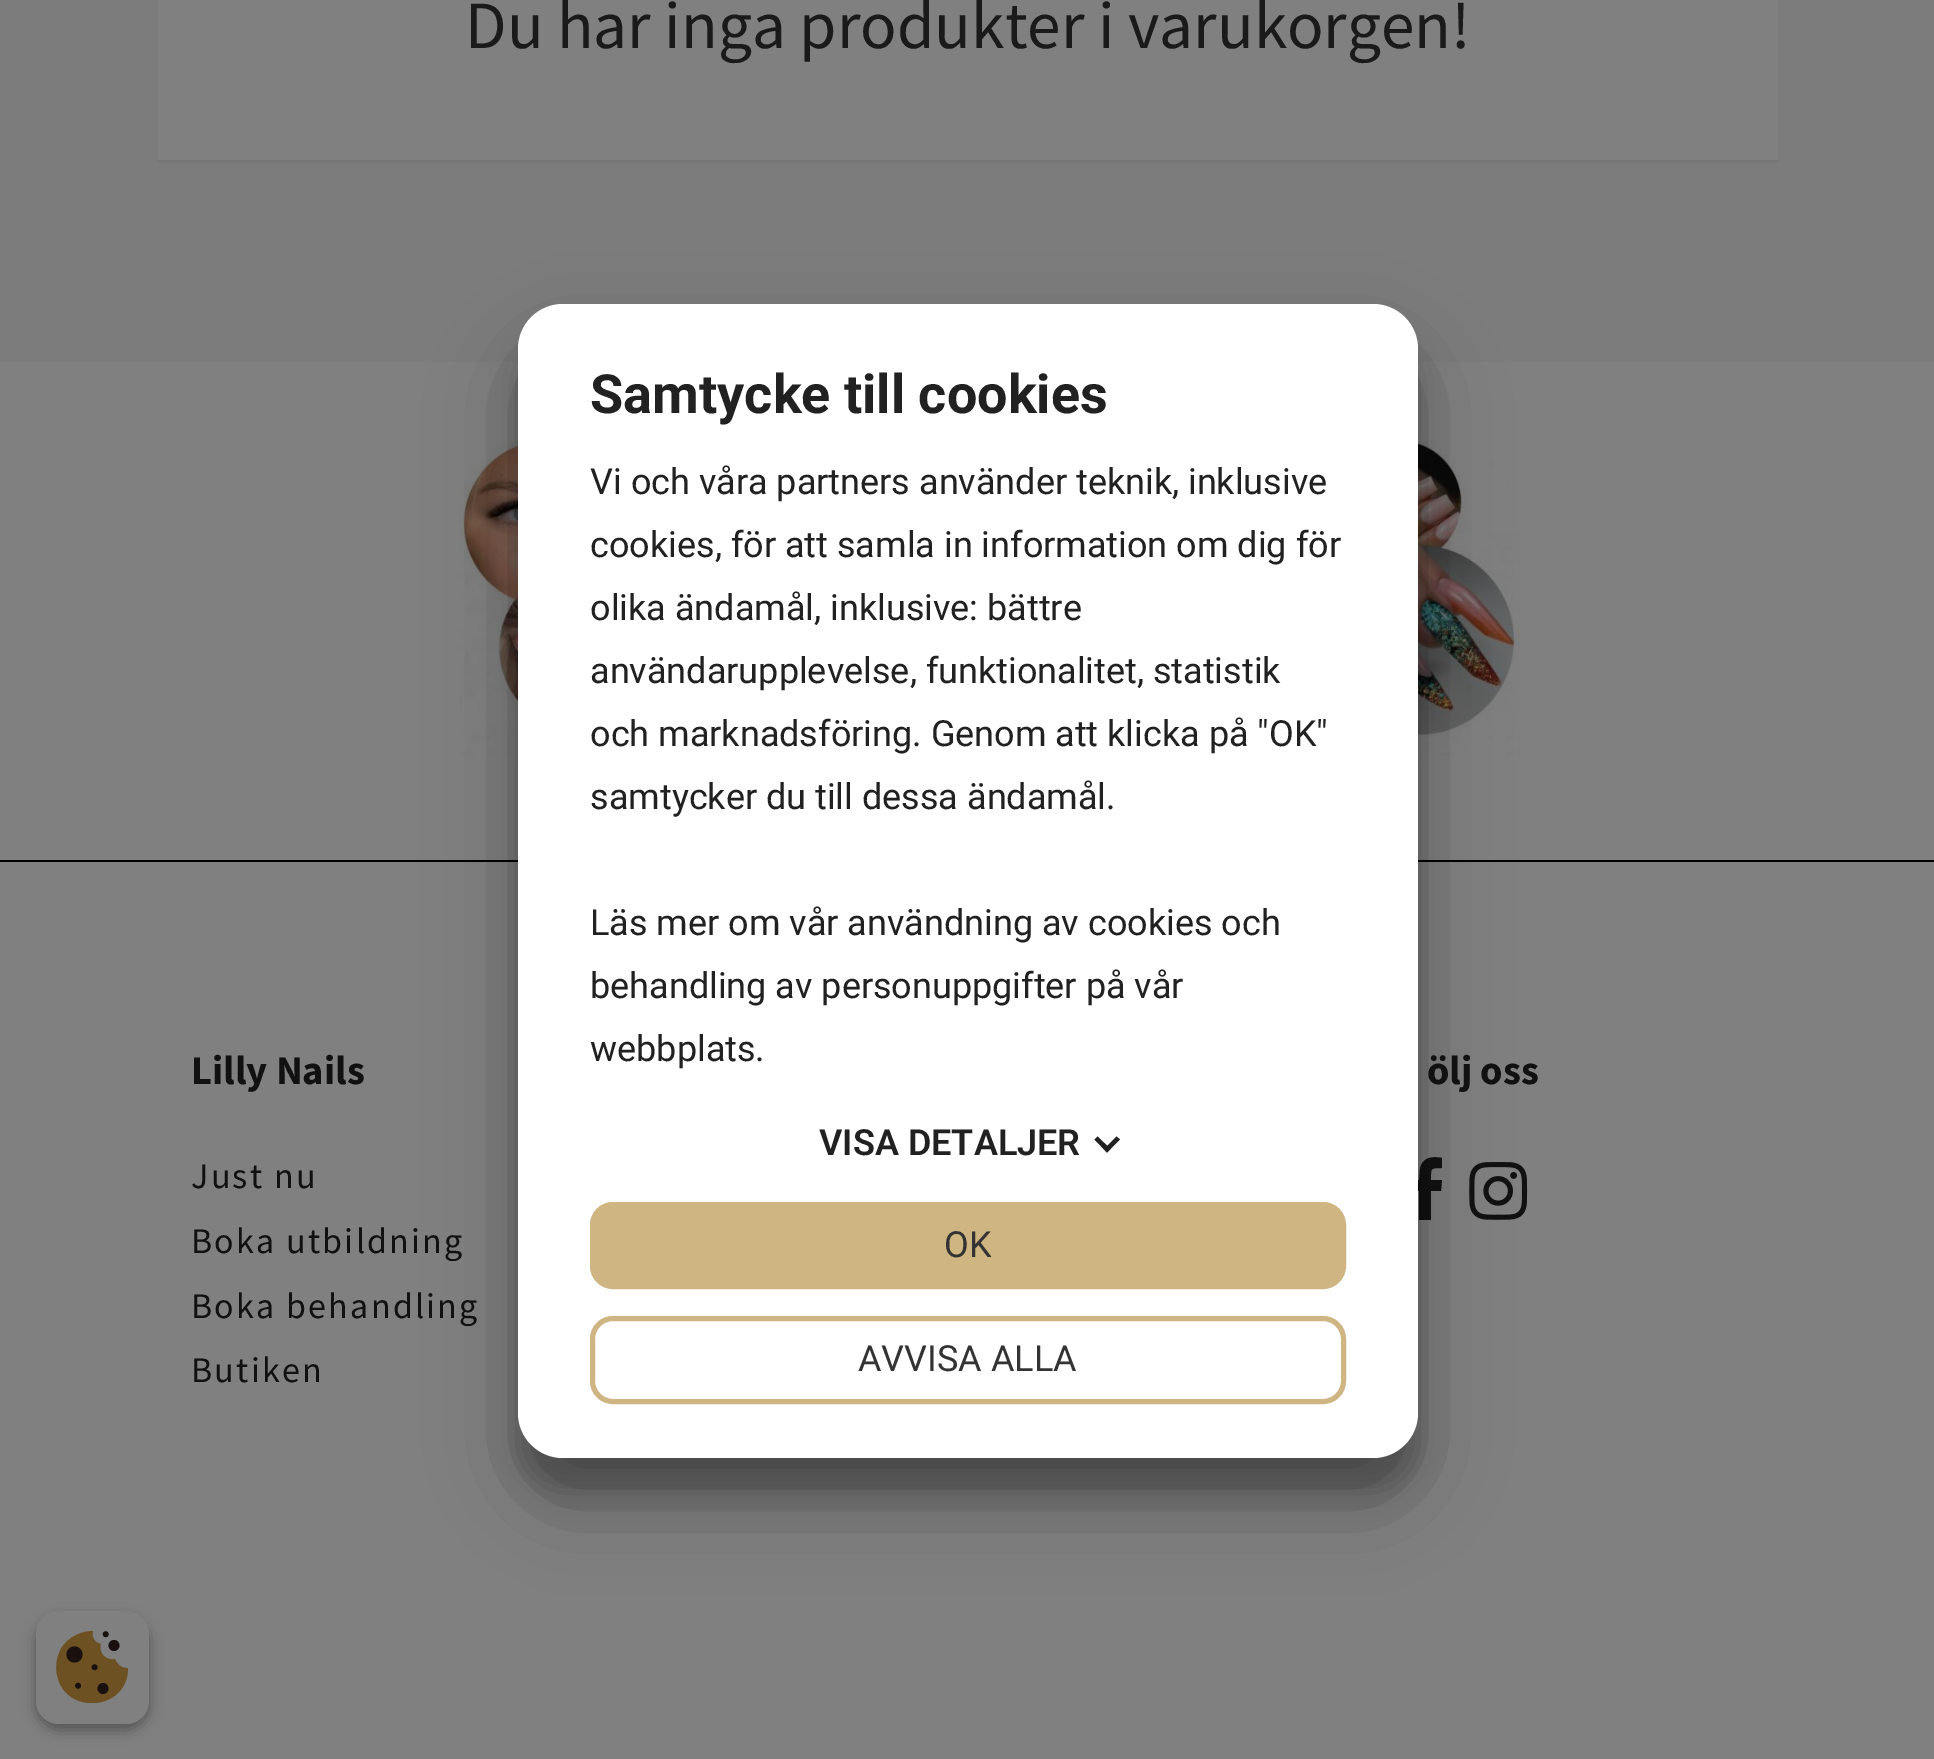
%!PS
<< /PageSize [1934 1759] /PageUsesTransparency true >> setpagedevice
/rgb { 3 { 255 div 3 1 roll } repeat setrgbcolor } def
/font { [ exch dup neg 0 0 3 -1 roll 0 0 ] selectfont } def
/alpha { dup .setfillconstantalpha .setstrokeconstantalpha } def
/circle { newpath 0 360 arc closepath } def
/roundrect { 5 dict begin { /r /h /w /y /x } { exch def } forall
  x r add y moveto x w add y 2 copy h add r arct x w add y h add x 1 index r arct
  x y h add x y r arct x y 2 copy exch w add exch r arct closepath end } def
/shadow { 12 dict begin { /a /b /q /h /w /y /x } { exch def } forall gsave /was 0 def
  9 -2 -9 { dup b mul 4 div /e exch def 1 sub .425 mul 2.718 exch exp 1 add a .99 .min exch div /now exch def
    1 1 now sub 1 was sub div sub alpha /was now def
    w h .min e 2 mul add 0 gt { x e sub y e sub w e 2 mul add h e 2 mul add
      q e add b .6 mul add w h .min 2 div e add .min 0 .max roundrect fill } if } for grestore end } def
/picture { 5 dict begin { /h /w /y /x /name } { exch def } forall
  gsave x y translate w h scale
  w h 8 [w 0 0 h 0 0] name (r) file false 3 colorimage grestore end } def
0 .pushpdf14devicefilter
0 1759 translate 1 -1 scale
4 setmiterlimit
128 128 128 rgb
0 0 1934 1759 rectfill
124 124 124 rgb
0 0 1934 362 rectfill
0 0 0 rgb
158 -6 1620 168 0 2 0.1 shadow
128 128 128 rgb
158 0 1620 160 rectfill
(img/1.rgb) 459 437 1061 326 picture
0 0 0 rgb
0 860 1934 2 rectfill
17 17 17 rgb
1442 1158 moveto 1442 1168 lineto 1430 1168 1431 1168 1431 1180 curveto 1442 1180 lineto 1441 1191 lineto 1431 1191 lineto 1431 1220 lineto 1419 1220 lineto 1419 1191 lineto 1410 1191 lineto 1410 1180 lineto 1419 1180 lineto 1420 1169 lineto 1422 1157 1433 1156 1442 1158 curveto closepath fill
0 0 0 rgb
518 338 900 1154 45 13.5 0.22 shadow
(img/2.rgb) 1469 1162 59 58 picture
518 347 900 1154 45 43 0.3 shadow
255 255 255 rgb
518 304 900 1154 45 roundrect fill
33 33 33 rgb
1116.5 1136.5 moveto 1120 1139.5 lineto 1107 1152.5 lineto 1104 1149 lineto closepath fill
1097.5 1136.5 moveto 1110.5 1149 lineto 1107 1152.5 lineto 1094.5 1139.5 lineto closepath fill
206 181 130 rgb
592.5 1204.5 751 82 20.5 roundrect gsave fill grestore
5 setlinewidth
stroke
592.5 1318.5 751 83 20.5 roundrect stroke
0 0 0 rgb
36 1618 113 112 23 7 0.23 shadow
36 1618 113 112 23 7 0.16 shadow
128 128 128 rgb
36 1611 113 113 23 roundrect fill
gsave
56 1631 72 72 rectclip
109 81 35 rgb
127 1668 moveto 121 1668 117 1664 115 1659 curveto 106 1661 98 1653 101 1644 curveto 95 1643 91 1637 93 1631 curveto 81 1631 69 1637 62 1647 curveto 57 1655 55 1665 57 1675 curveto 65 1716 128 1711 128 1668 curveto closepath fill
grestore
26 16 13 rgb
114 1645.5 5.5 circle fill
103 1688.5 5.5 circle fill
74.5 1654.5 8 circle fill
105.7 1634.2 2.9 circle fill
94.6 1667.2 2.9 circle fill
78.1 1685.7 2.9 circle fill
/SourceSansPro-Regular 67.5 font
26 26 26 rgb
465 48 moveto (Du har inga produkter i varukorgen!) show
/Roboto-Bold 54 font
33 33 33 rgb
590 413 moveto (Samtycke till cookies) show
/Roboto-Regular 36 font
[
  [(Vi och våra partners använder teknik, inklusive) 590 494]
  [(cookies, för att samla in information om dig för) 590 557]
  [(olika ändamål, inklusive: bättre) 590 620]
  [(användarupplevelse, funktionalitet, statistik) 590 683]
  [(och marknadsföring. Genom att klicka på "OK") 590 746]
  [(samtycker du till dessa ändamål.) 590 809]
  [(Läs mer om vår användning av cookies och) 590 935]
  [(behandling av personuppgifter på vår) 590 998]
  [(webbplats.) 590 1061]
] { aload pop moveto show } forall
/Roboto-SemiBold 36 font
819 1155 moveto (VISA DETALJER) show
/Roboto-Regular 36 font
51 51 51 rgb
944 1257 moveto (OK) show
858 1371 moveto (AVVISA ALLA) show
/SourceSansPro-Bold 40.5 font
17 17 17 rgb
191 1084 moveto (Lilly Nails) show
/SourceSansPro-Regular 36 font
191 1188 moveto 2.25 0 (Just nu) ashow
191 1253 moveto 2.25 0 (Boka utbildning) ashow
191 1318 moveto 2.25 0 (Boka behandling) ashow
191 1382 moveto 2.25 0 (Butiken) ashow
/SourceSansPro-Bold 40.5 font
1427 1084 moveto (ölj oss) show
.poppdf14devicefilter showpage
